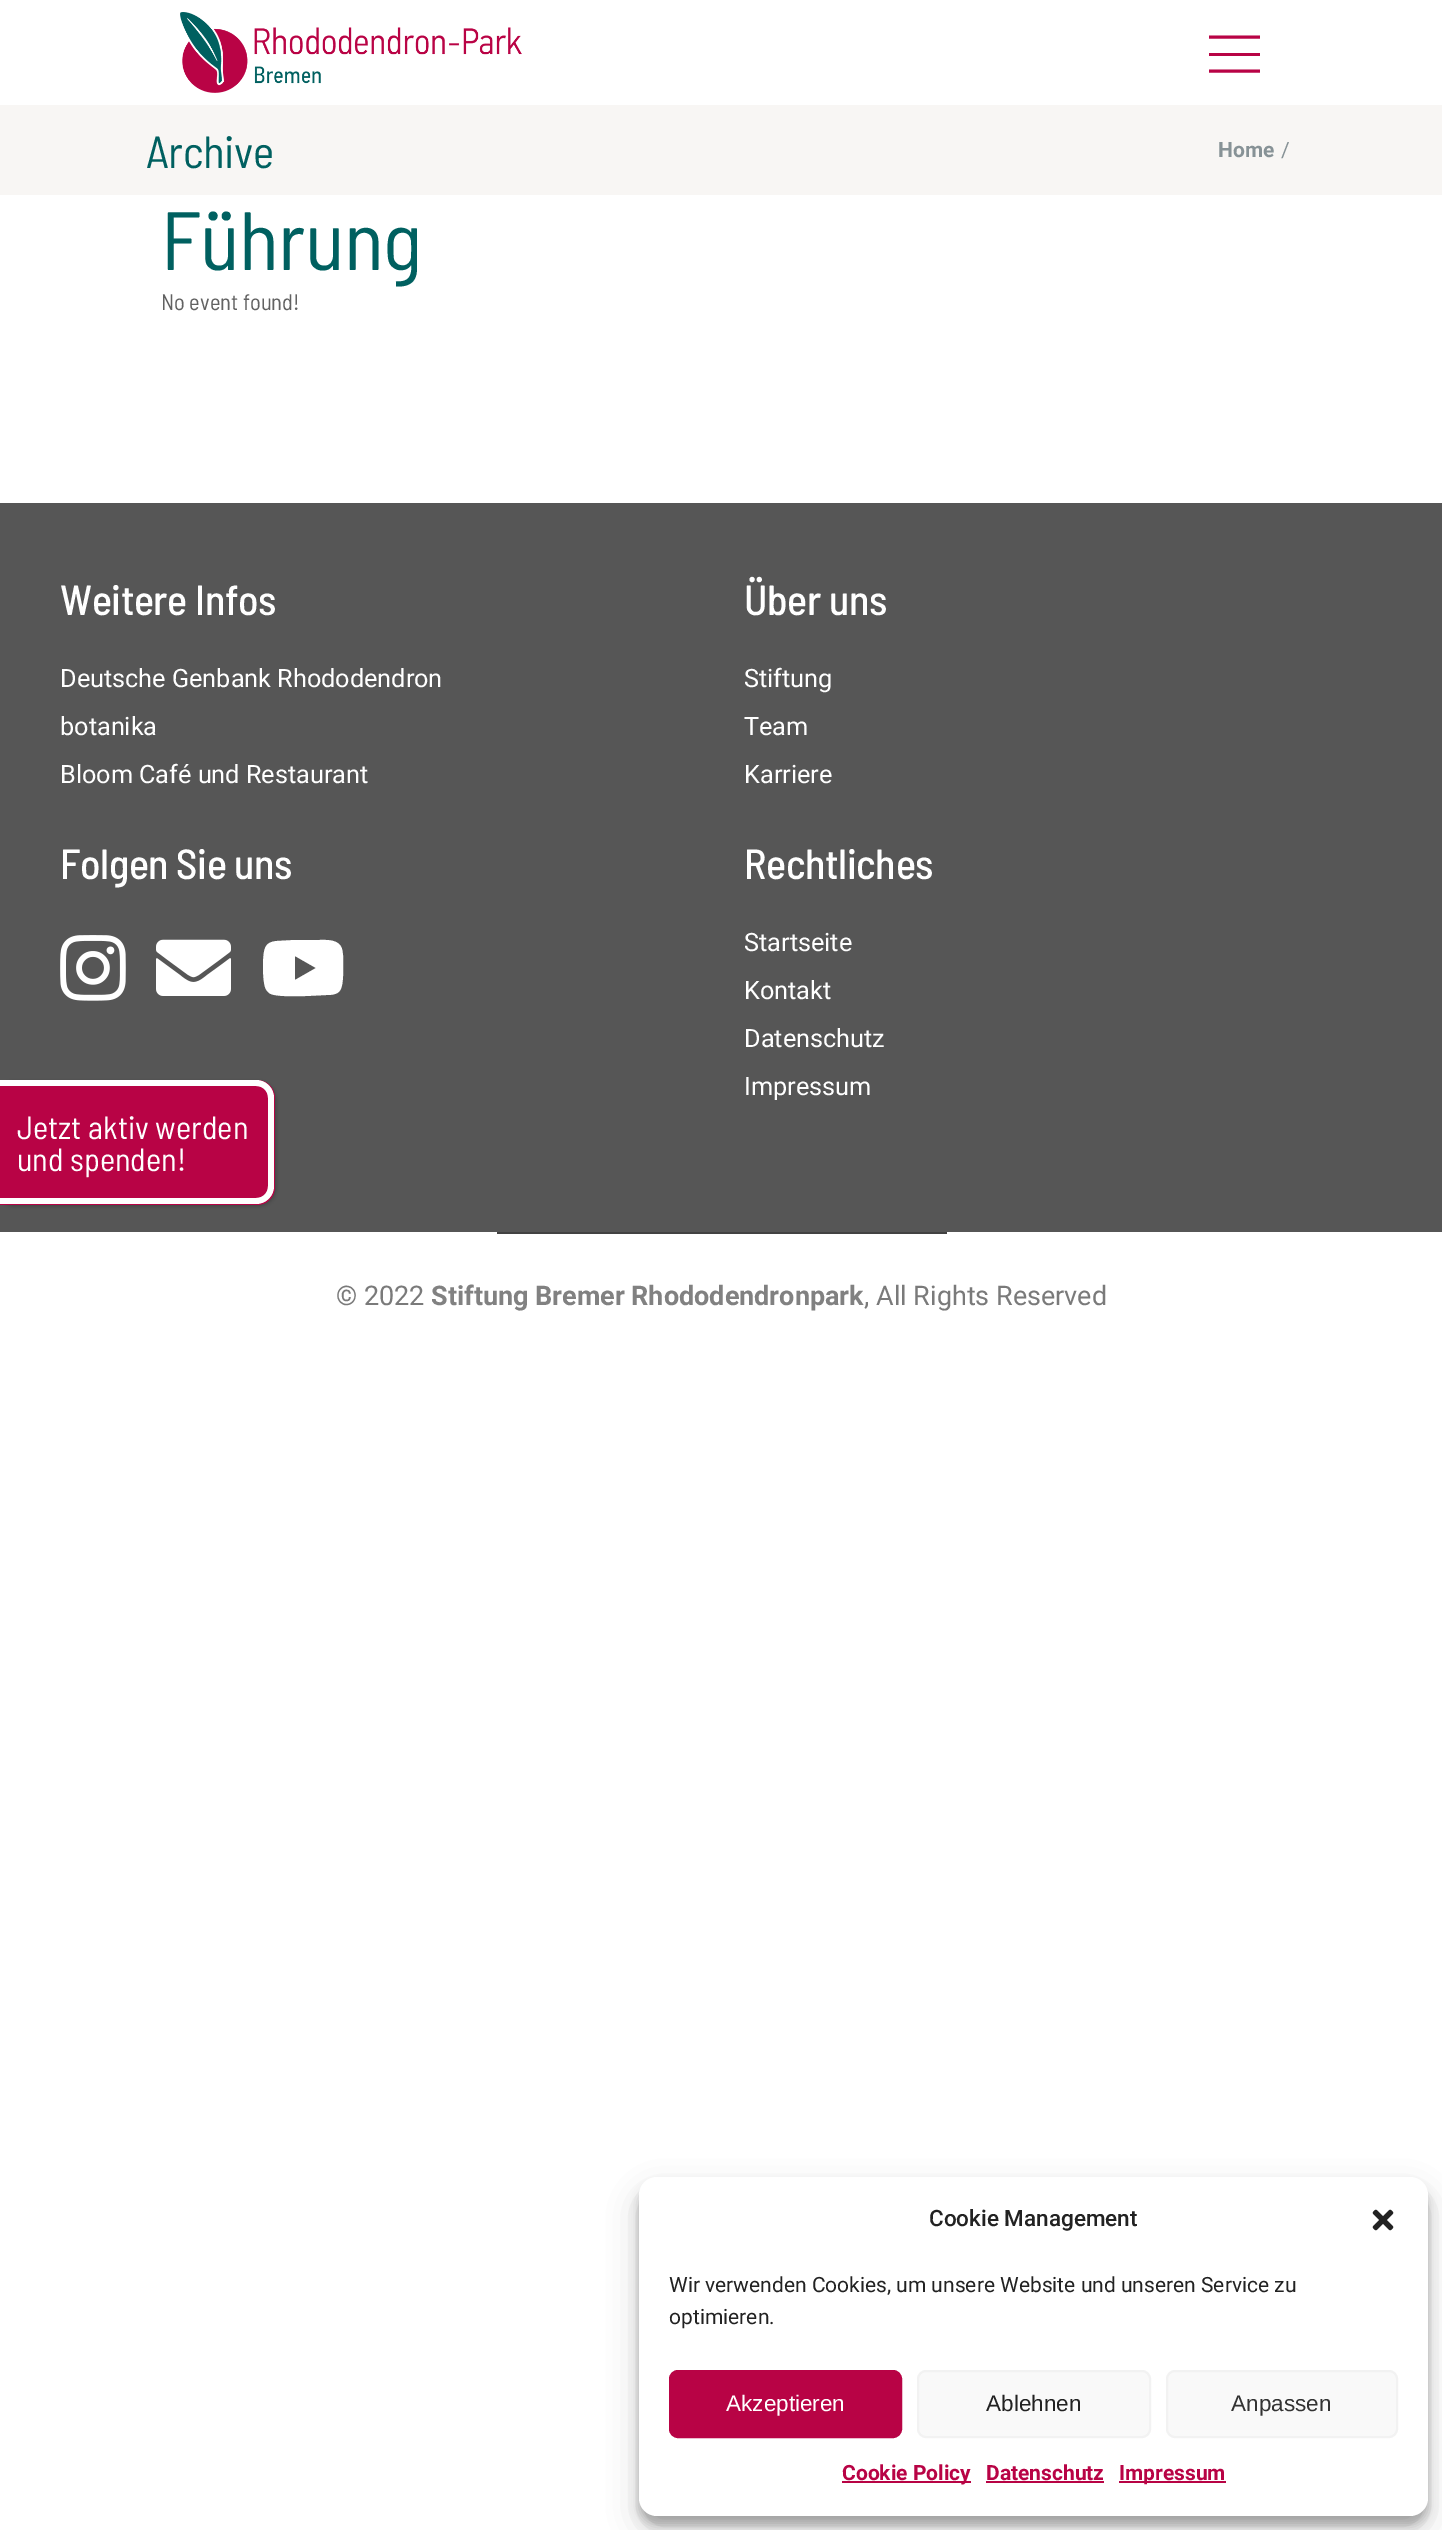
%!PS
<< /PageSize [1442 2530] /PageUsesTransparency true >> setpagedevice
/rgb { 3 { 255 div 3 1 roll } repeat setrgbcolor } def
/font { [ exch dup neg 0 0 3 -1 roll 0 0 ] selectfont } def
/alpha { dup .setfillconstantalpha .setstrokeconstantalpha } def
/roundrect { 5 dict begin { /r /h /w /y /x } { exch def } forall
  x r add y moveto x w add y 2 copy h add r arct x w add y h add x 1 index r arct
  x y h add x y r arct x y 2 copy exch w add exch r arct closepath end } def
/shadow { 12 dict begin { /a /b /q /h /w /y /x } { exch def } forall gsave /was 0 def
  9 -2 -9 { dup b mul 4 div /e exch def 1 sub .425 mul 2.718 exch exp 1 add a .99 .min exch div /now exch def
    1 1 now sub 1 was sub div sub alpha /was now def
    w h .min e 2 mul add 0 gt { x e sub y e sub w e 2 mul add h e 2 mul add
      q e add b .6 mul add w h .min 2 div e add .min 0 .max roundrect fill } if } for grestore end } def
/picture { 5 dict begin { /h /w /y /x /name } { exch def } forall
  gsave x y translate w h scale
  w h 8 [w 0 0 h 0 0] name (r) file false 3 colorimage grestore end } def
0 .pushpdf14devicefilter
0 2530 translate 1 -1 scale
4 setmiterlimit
255 255 255 rgb
0 0 1442 2530 rectfill
(img/1.rgb) 180 12 342 81 picture
184 3 69 rgb
3 setlinewidth
1209 37 moveto 1260 37 lineto stroke
1209 53 51 3 rectfill
1209 71 moveto 1260 71 lineto stroke
248 246 244 rgb
0 105 1442 90 rectfill
86 86 86 rgb
0 503 1442 729 rectfill
(img/2.rgb) 60 935 66 66 picture
(img/3.rgb) 156 939 75 57 picture
255 255 255 rgb
342 949 moveto 344 957 343 968 343 977 curveto 342 991 340 995 326 995 curveto 306 996 lineto 298 996 278 997 271 994 curveto 268 993 266 990 265 987 curveto 263 980 263 969 263 962 curveto 264 949 264 942 277 941 curveto 295 940 lineto 319 940 lineto 327 940 339 939 342 949 curveto closepath 295 980 moveto 316 968 lineto 295 956 lineto closepath fill
66 66 66 rgb
497 1232 450 2 rectfill
2 2 2 rgb
-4 1082 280 124 18 2 0.23 shadow
184 3 69 rgb
-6 1080 moveto 257 1080 lineto 267 1080 275 1088 275 1098 curveto 275 1187 lineto 275 1197 267 1205 257 1205 curveto -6 1205 lineto closepath fill
255 255 255 rgb
-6 1080 moveto 256 1080 lineto 266 1080 274 1088 274 1098 curveto 274 1186 lineto 274 1196 266 1204 256 1204 curveto -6 1204 lineto closepath -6 1086 moveto 256 1086 lineto 263 1086 268 1091 268 1098 curveto 268 1186 lineto 268 1193 263 1198 256 1198 curveto -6 1198 lineto closepath eofill
0 0 0 rgb
639 2186 789 339 18 4.5 0.23 shadow
639 2192 789 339 18 15 0.19 shadow
255 255 255 rgb
639 2177 789 339 18 roundrect fill
(img/4.rgb) 1372 2209 22 22 picture
184 3 69 rgb
670 2371 231 66 8 roundrect gsave fill grestore
2 setlinewidth
stroke
249 249 249 rgb
918 2371 232 66 8 roundrect gsave fill grestore
242 242 242 rgb
stroke
249 249 249 rgb
1167 2371 230 66 8 roundrect gsave fill grestore
242 242 242 rgb
stroke
[
  [842 2481 129 2 184 3 69]
  [986 2481 118 2 184 3 69]
  [1119 2481 107 2 184 3 69]
] { aload pop rgb rectfill } forall
/BarlowSemiCondensed-Regular 45 font
0 96 96 rgb
146 168 moveto -0.5 0 (Archive) ashow
/Roboto-Bold 21 font
135 146 150 rgb
1218 157 moveto (Home) show
/Roboto-Regular 21 font
1281 157 moveto (/) show
/BarlowSemiCondensed-Regular 82.5 font
0 96 96 rgb
161 270 moveto -0.75 0 (Führung) ashow
/BarlowSemiCondensed-Regular 22.5 font
98 98 98 rgb
161 310 moveto (No event found!) show
/BarlowSemiCondensed-Medium 42 font
255 255 255 rgb
60 615 moveto -0.4 0 (Weitere Infos) ashow
/Roboto-Regular 25.25 font
[
  [(Deutsche Genbank Rhododendron) 60 687]
  [(botanika) 60 735]
  [(Bloom Café und Restaurant) 60 783]
] { aload pop moveto show } forall
/BarlowSemiCondensed-Medium 42 font
744 615 moveto -0.4 0 (Über uns) ashow
/Roboto-Regular 25.25 font
[
  [(Stiftung) 744 687]
  [(Team) 744 735]
  [(Karriere) 744 783]
] { aload pop moveto show } forall
/BarlowSemiCondensed-Medium 42 font
60 879 moveto -0.4 0 (Folgen Sie uns) ashow
744 879 moveto -0.4 0 (Rechtliches) ashow
/Roboto-Regular 25.25 font
[
  [(Startseite) 744 951]
  [(Kontakt) 744 999]
  [(Datenschutz) 744 1047]
  [(Impressum) 744 1095]
] { aload pop moveto show } forall
/Roboto-Regular 27 font
122 122 122 rgb
336 1305 moveto (© 2022) show
/Roboto-Bold 27 font
129 129 129 rgb
431 1305 moveto (Stiftung Bremer Rhododendronpark) show
/Roboto-Regular 27 font
122 122 122 rgb
864 1305 moveto (, All Rights Reserved) show
/BarlowSemiCondensed-Regular 32.25 font
255 255 255 rgb
17 1139 moveto (Jetzt aktiv werden) show
17 1171 moveto (und spenden!) show
/Roboto-Medium 22.5 font
34 34 34 rgb
929 2226 moveto (Cookie Management) show
/Roboto-Regular 21 font
669 2292 moveto (Wir verwenden Cookies, um unsere Website und unseren Service zu) show
669 2324 moveto (optimieren.) show
/LiberationSans-Regular 22.5 font
255 255 255 rgb
726 2411 moveto (Akzeptieren) show
34 34 34 rgb
986 2411 moveto (Ablehnen) show
51 51 51 rgb
1231 2411 moveto (Anpassen) show
/Roboto-Bold 21 font
184 3 69 rgb
[
  [(Cookie Policy) 842 2480]
  [(Datenschutz) 986 2480]
  [(Impressum) 1119 2480]
] { aload pop moveto show } forall
.poppdf14devicefilter showpage
